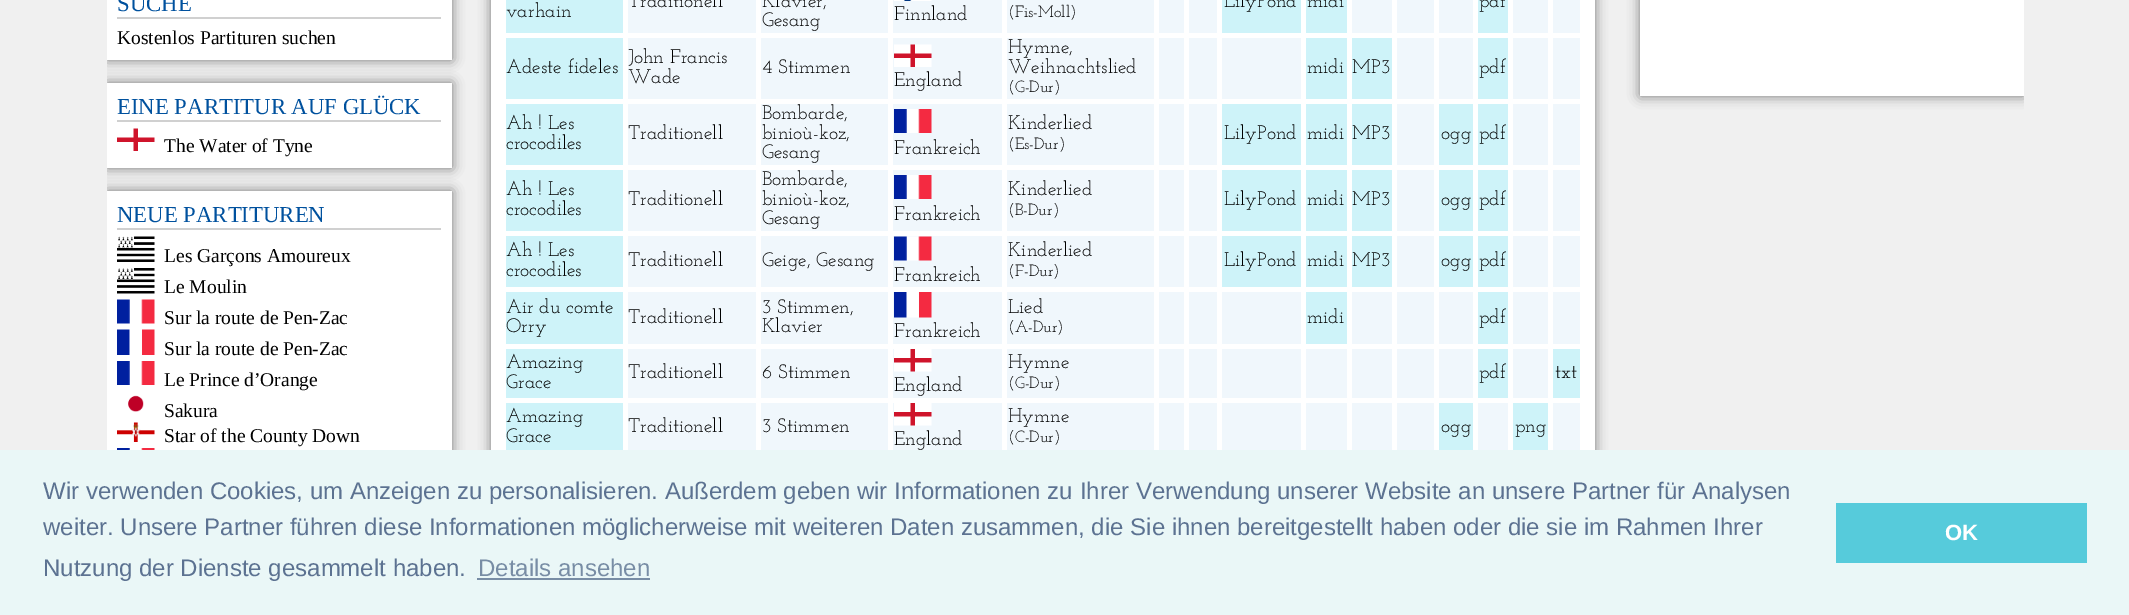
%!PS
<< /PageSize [2129 615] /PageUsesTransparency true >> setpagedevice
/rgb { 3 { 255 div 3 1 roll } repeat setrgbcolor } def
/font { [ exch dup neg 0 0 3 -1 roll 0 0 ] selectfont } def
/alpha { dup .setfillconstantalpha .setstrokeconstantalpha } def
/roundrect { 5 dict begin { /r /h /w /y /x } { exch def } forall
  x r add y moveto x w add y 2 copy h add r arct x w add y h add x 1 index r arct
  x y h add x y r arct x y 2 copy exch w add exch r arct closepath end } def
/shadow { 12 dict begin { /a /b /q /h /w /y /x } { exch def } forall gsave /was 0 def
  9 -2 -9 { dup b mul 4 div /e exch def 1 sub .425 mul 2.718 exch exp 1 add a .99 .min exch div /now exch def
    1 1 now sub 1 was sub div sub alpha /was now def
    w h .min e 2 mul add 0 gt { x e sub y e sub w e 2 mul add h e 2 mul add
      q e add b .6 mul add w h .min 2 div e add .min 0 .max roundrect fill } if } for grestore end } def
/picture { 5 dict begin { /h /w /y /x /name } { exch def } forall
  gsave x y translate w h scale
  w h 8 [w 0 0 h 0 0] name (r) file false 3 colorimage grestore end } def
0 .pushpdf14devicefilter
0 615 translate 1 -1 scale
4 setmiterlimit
240 240 240 rgb
0 0 2129 615 rectfill
gsave
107 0 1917 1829 rectclip
0 0 0 rgb
107 -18 345 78 0 6 0.5 shadow
grestore
255 255 255 rgb
107 0 345 60 rectfill
208 208 208 rgb
117 17 324 2 rectfill
gsave
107 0 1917 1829 rectclip
0 0 0 rgb
107 83 345 85 0 6 0.5 shadow
grestore
255 255 255 rgb
107 83 345 85 rectfill
208 208 208 rgb
117 120 324 2 rectfill
(img/1.rgb) 117 128 38 23 picture
gsave
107 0 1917 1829 rectclip
0 0 0 rgb
107 191 345 361 0 6 0.5 shadow
grestore
255 255 255 rgb
107 191 345 259 rectfill
208 208 208 rgb
117 228 324 2 rectfill
(img/2.rgb) 117 236 38 26 picture
(img/3.rgb) 117 268 38 26 picture
(img/4.rgb) 117 299 38 25 picture
(img/5.rgb) 117 329 38 26 picture
(img/6.rgb) 117 361 38 24 picture
(img/7.rgb) 128 395 16 17 picture
(img/8.rgb) 117 422 38 20 picture
(img/9.rgb) 117 448 38 2 picture
0 0 0 rgb
491 -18 1104 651 0 6 0.5 shadow
[
  [491 0 1104 450 255 255 255]
  [628 0 952 450 240 247 252]
  [506 0 117 33 206 243 249]
  [1548 33 36 5 255 255 255]
  [1548 99 36 5 255 255 255]
  [1548 165 36 5 255 255 255]
  [1548 231 36 5 255 255 255]
  [1548 287 36 5 255 255 255]
  [1548 344 36 5 255 255 255]
  [1548 398 36 5 255 255 255]
  [1548 398 5 58 255 255 255]
  [1508 398 45 5 255 255 255]
  [1548 344 5 58 255 255 255]
  [1508 344 45 5 255 255 255]
  [1548 287 5 61 255 255 255]
  [1508 287 45 5 255 255 255]
  [1548 231 5 60 255 255 255]
  [1508 231 45 5 255 255 255]
  [1548 165 5 71 255 255 255]
  [1508 165 45 5 255 255 255]
  [1548 99 5 71 255 255 255]
  [1508 99 45 5 255 255 255]
  [1548 33 5 71 255 255 255]
  [1508 33 45 5 255 255 255]
  [1508 398 5 58 255 255 255]
  [1473 398 39 5 255 255 255]
  [1508 344 5 58 255 255 255]
  [1473 344 39 5 255 255 255]
  [1508 287 5 61 255 255 255]
  [1473 287 39 5 255 255 255]
  [1508 231 5 60 255 255 255]
  [1473 231 39 5 255 255 255]
  [1508 165 5 71 255 255 255]
  [1473 165 39 5 255 255 255]
  [1508 99 5 71 255 255 255]
  [1473 99 39 5 255 255 255]
  [1508 33 5 71 255 255 255]
  [1473 33 39 5 255 255 255]
  [1473 398 5 58 255 255 255]
  [1434 398 44 5 255 255 255]
  [1473 344 5 58 255 255 255]
  [1434 344 44 5 255 255 255]
  [1473 287 5 61 255 255 255]
  [1434 287 44 5 255 255 255]
  [1473 231 5 60 255 255 255]
  [1434 231 44 5 255 255 255]
  [1473 165 5 71 255 255 255]
  [1434 165 44 5 255 255 255]
  [1473 99 5 71 255 255 255]
  [1434 99 44 5 255 255 255]
  [1473 33 5 71 255 255 255]
  [1434 33 44 5 255 255 255]
  [1434 398 5 58 255 255 255]
  [1392 398 47 5 255 255 255]
  [1434 344 5 58 255 255 255]
  [1392 344 47 5 255 255 255]
  [1434 287 5 61 255 255 255]
  [1392 287 47 5 255 255 255]
  [1434 231 5 60 255 255 255]
  [1392 231 47 5 255 255 255]
  [1434 165 5 71 255 255 255]
  [1392 165 47 5 255 255 255]
  [1434 99 5 71 255 255 255]
  [1392 99 47 5 255 255 255]
  [1434 33 5 71 255 255 255]
  [1392 33 47 5 255 255 255]
  [1392 398 5 58 255 255 255]
  [1347 398 50 5 255 255 255]
  [1392 344 5 58 255 255 255]
  [1347 344 50 5 255 255 255]
  [1392 287 5 61 255 255 255]
  [1347 287 50 5 255 255 255]
  [1392 231 5 60 255 255 255]
  [1347 231 50 5 255 255 255]
  [1392 165 5 71 255 255 255]
  [1347 165 50 5 255 255 255]
  [1392 99 5 71 255 255 255]
  [1347 99 50 5 255 255 255]
  [1392 33 5 71 255 255 255]
  [1347 33 50 5 255 255 255]
  [1347 398 5 58 255 255 255]
  [1301 398 51 5 255 255 255]
  [1347 344 5 58 255 255 255]
  [1301 344 51 5 255 255 255]
  [1347 287 5 61 255 255 255]
  [1301 287 51 5 255 255 255]
  [1347 231 5 60 255 255 255]
  [1301 231 51 5 255 255 255]
  [1347 165 5 71 255 255 255]
  [1301 165 51 5 255 255 255]
  [1347 99 5 71 255 255 255]
  [1301 99 51 5 255 255 255]
  [1347 33 5 71 255 255 255]
  [1301 33 51 5 255 255 255]
  [1301 398 5 58 255 255 255]
  [1217 398 88 5 255 255 255]
  [1301 344 5 58 255 255 255]
  [1217 344 88 5 255 255 255]
  [1301 287 5 61 255 255 255]
  [1217 287 88 5 255 255 255]
  [1301 231 5 60 255 255 255]
  [1217 231 88 5 255 255 255]
  [1301 165 5 71 255 255 255]
  [1217 165 88 5 255 255 255]
  [1301 99 5 71 255 255 255]
  [1217 99 88 5 255 255 255]
  [1301 33 5 71 255 255 255]
  [1217 33 88 5 255 255 255]
  [1217 398 5 58 255 255 255]
  [1184 398 37 5 255 255 255]
  [1217 344 5 58 255 255 255]
  [1184 344 37 5 255 255 255]
  [1217 287 5 61 255 255 255]
  [1184 287 37 5 255 255 255]
  [1217 231 5 60 255 255 255]
  [1184 231 37 5 255 255 255]
  [1217 165 5 71 255 255 255]
  [1184 165 37 5 255 255 255]
  [1217 99 5 71 255 255 255]
  [1184 99 37 5 255 255 255]
  [1217 33 5 71 255 255 255]
  [1184 33 37 5 255 255 255]
  [1184 398 5 58 255 255 255]
  [1154 398 34 5 255 255 255]
  [1184 344 5 58 255 255 255]
  [1154 344 34 5 255 255 255]
  [1184 287 5 61 255 255 255]
  [1154 287 34 5 255 255 255]
  [1184 231 5 60 255 255 255]
  [1154 231 34 5 255 255 255]
  [1184 165 5 71 255 255 255]
  [1154 165 34 5 255 255 255]
  [1184 99 5 71 255 255 255]
  [1154 99 34 5 255 255 255]
  [1184 33 5 71 255 255 255]
  [1154 33 34 5 255 255 255]
  [1154 398 5 58 255 255 255]
  [1002 398 156 5 255 255 255]
  [1154 344 5 58 255 255 255]
  [1002 344 156 5 255 255 255]
  [1154 287 5 61 255 255 255]
  [1002 287 156 5 255 255 255]
  [1154 231 5 60 255 255 255]
  [1002 231 156 5 255 255 255]
  [1154 165 5 71 255 255 255]
  [1002 165 156 5 255 255 255]
  [1154 99 5 71 255 255 255]
  [1002 99 156 5 255 255 255]
  [1154 33 5 71 255 255 255]
  [1002 33 156 5 255 255 255]
  [1002 398 5 58 255 255 255]
  [888 398 119 5 255 255 255]
  [1002 344 5 58 255 255 255]
  [888 344 119 5 255 255 255]
  [1002 287 5 61 255 255 255]
  [888 287 119 5 255 255 255]
  [1002 231 5 60 255 255 255]
  [888 231 119 5 255 255 255]
  [1002 165 5 71 255 255 255]
  [888 165 119 5 255 255 255]
  [1002 99 5 71 255 255 255]
  [888 99 119 5 255 255 255]
  [1002 33 5 71 255 255 255]
  [888 33 119 5 255 255 255]
  [888 398 5 58 255 255 255]
  [756 398 137 5 255 255 255]
  [888 344 5 58 255 255 255]
  [756 344 137 5 255 255 255]
  [888 287 5 61 255 255 255]
  [756 287 137 5 255 255 255]
  [888 231 5 60 255 255 255]
  [756 231 137 5 255 255 255]
  [888 165 5 71 255 255 255]
  [756 165 137 5 255 255 255]
  [888 99 5 71 255 255 255]
  [756 99 137 5 255 255 255]
  [888 33 5 71 255 255 255]
  [756 33 137 5 255 255 255]
  [756 398 5 58 255 255 255]
  [623 398 138 5 255 255 255]
  [756 344 5 58 255 255 255]
  [623 344 138 5 255 255 255]
  [756 287 5 61 255 255 255]
  [623 287 138 5 255 255 255]
  [756 231 5 60 255 255 255]
  [623 231 138 5 255 255 255]
  [756 165 5 71 255 255 255]
  [623 165 138 5 255 255 255]
  [756 99 5 71 255 255 255]
  [623 99 138 5 255 255 255]
  [756 33 5 71 255 255 255]
  [623 33 138 5 255 255 255]
  [756 0 5 38 255 255 255]
  [888 0 5 38 255 255 255]
] { aload pop rgb rectfill } forall
(img/10.rgb) 894 0 38 1 picture
[
  [1002 0 5 38 255 255 255]
  [1154 0 5 38 255 255 255]
  [1184 0 5 38 255 255 255]
  [1222 0 79 33 206 243 249]
  [1217 0 5 38 255 255 255]
  [1306 0 41 33 206 243 249]
  [1301 0 5 38 255 255 255]
  [1347 0 5 38 255 255 255]
  [1392 0 5 38 255 255 255]
  [1434 0 5 38 255 255 255]
  [1478 0 30 33 206 243 249]
  [1473 0 5 38 255 255 255]
  [1508 0 5 38 255 255 255]
  [1548 0 5 38 255 255 255]
  [506 38 117 61 206 243 249]
  [1306 38 41 61 206 243 249]
  [1352 38 40 61 206 243 249]
  [1478 38 30 61 206 243 249]
] { aload pop rgb rectfill } forall
(img/11.rgb) 894 44 38 23 picture
[
  [506 104 117 61 206 243 249]
  [1222 104 79 61 206 243 249]
  [1306 104 41 61 206 243 249]
  [1352 104 40 61 206 243 249]
  [1439 104 34 61 206 243 249]
  [1478 104 30 61 206 243 249]
] { aload pop rgb rectfill } forall
(img/12.rgb) 894 109 38 24 picture
[
  [506 170 117 61 206 243 249]
  [1222 170 79 61 206 243 249]
  [1306 170 41 61 206 243 249]
  [1352 170 40 61 206 243 249]
  [1439 170 34 61 206 243 249]
  [1478 170 30 61 206 243 249]
] { aload pop rgb rectfill } forall
(img/12.rgb) 894 175 38 24 picture
[
  [506 236 117 51 206 243 249]
  [1222 236 79 51 206 243 249]
  [1306 236 41 51 206 243 249]
  [1352 236 40 51 206 243 249]
  [1439 236 34 51 206 243 249]
  [1478 236 30 51 206 243 249]
] { aload pop rgb rectfill } forall
(img/13.rgb) 894 236 38 25 picture
[
  [506 292 117 52 206 243 249]
  [1306 292 41 52 206 243 249]
  [1478 292 30 52 206 243 249]
] { aload pop rgb rectfill } forall
(img/14.rgb) 894 292 38 26 picture
[
  [506 349 117 49 206 243 249]
  [1478 349 30 49 206 243 249]
  [1553 349 27 49 206 243 249]
] { aload pop rgb rectfill } forall
(img/15.rgb) 894 349 38 23 picture
[
  [506 403 117 47 206 243 249]
  [501 450 5 6 255 255 255]
  [623 450 5 6 255 255 255]
] { aload pop rgb rectfill } forall
(img/15.rgb) 894 403 38 23 picture
[
  [1439 403 34 47 206 243 249]
  [1513 403 35 47 206 243 249]
  [1580 450 5 6 255 255 255]
] { aload pop rgb rectfill } forall
gsave
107 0 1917 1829 rectclip
0 0 0 rgb
1640 -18 384 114 0 6 0.5 shadow
grestore
[
  [1640 0 384 96 255 255 255]
  [0 450 2129 165 234 247 247]
  [477 578 173 2 120 141 165]
  [1836 503 251 60 86 203 219]
] { aload pop rgb rectfill } forall
/LiberationSerif-Regular 22.75 font
0 81 158 rgb
117 11 moveto (SUCHE) show
/LiberationSerif-Regular 19.5 font
0 0 0 rgb
117 44 moveto (Kostenlos Partituren suchen) show
/LiberationSerif-Regular 22.75 font
0 81 158 rgb
117 114 moveto (EINE PARTITUR AUF GLÜCK) show
/LiberationSerif-Regular 19.5 font
0 0 0 rgb
164 152 moveto (The Water of Tyne) show
/LiberationSerif-Regular 22.75 font
0 81 158 rgb
117 222 moveto (NEUE PARTITUREN) show
/LiberationSerif-Regular 19.5 font
0 0 0 rgb
[
  [(Les Garçons Amoureux) 164 262]
  [(Le Moulin) 164 293]
  [(Sur la route de Pen-Zac) 164 324]
  [(Sur la route de Pen-Zac) 164 355]
  [(Le Prince d’Orange) 164 386]
  [(Sakura) 164 417]
  [(Star of the County Down) 164 442]
] { aload pop moveto show } forall
/JosefinSlab-Regular 19.5 font
[
  [(varhain) 506 17]
  [(Traditionell) 628 7]
  [(Klavier,) 762 7]
  [(Gesang) 762 26]
  [(Finnland) 894 20]
] { aload pop moveto show } forall
/JosefinSlab-Regular 16.25 font
1008 17 moveto (\(Fis-Moll\)) show
/JosefinSlab-Regular 19.5 font
[
  [(LilyPond) 1224 7]
  [(midi) 1307 7]
  [(pdf) 1479 7]
  [(Adeste fideles) 506 73]
  [(John Francis) 628 63]
  [(Wade) 628 83]
  [(4 Stimmen) 762 73]
  [(Hymne,) 1008 53]
  [(Weihnachtslied) 1008 73]
] { aload pop moveto show } forall
/JosefinSlab-Regular 16.25 font
1008 92 moveto (\(G-Dur\)) show
/JosefinSlab-Regular 19.5 font
[
  [(midi) 1307 73]
  [(MP3) 1352 73]
  [(pdf) 1479 73]
  [(England) 894 86]
  [(Ah ! Les) 506 129]
  [(crocodiles) 506 149]
  [(Traditionell) 628 139]
  [(Bombarde,) 762 119]
  [(binioù-koz,) 762 139]
  [(Gesang) 762 158]
  [(Kinderlied) 1008 129]
] { aload pop moveto show } forall
/JosefinSlab-Regular 16.25 font
1008 149 moveto (\(Es-Dur\)) show
/JosefinSlab-Regular 19.5 font
[
  [(LilyPond) 1224 139]
  [(midi) 1307 139]
  [(MP3) 1352 139]
  [(ogg) 1441 139]
  [(pdf) 1479 139]
  [(Frankreich) 894 154]
  [(Ah ! Les) 506 195]
  [(crocodiles) 506 215]
  [(Traditionell) 628 205]
  [(Bombarde,) 762 185]
  [(binioù-koz,) 762 205]
  [(Gesang) 762 224]
  [(Kinderlied) 1008 195]
] { aload pop moveto show } forall
/JosefinSlab-Regular 16.25 font
1008 215 moveto (\(B-Dur\)) show
/JosefinSlab-Regular 19.5 font
[
  [(LilyPond) 1224 205]
  [(midi) 1307 205]
  [(MP3) 1352 205]
  [(ogg) 1441 205]
  [(pdf) 1479 205]
  [(Frankreich) 894 220]
  [(Ah ! Les) 506 256]
  [(crocodiles) 506 276]
  [(Traditionell) 628 266]
  [(Geige, Gesang) 762 266]
  [(Kinderlied) 1008 256]
] { aload pop moveto show } forall
/JosefinSlab-Regular 16.25 font
1008 276 moveto (\(F-Dur\)) show
/JosefinSlab-Regular 19.5 font
[
  [(LilyPond) 1224 266]
  [(midi) 1307 266]
  [(MP3) 1352 266]
  [(ogg) 1441 266]
  [(pdf) 1479 266]
  [(Frankreich) 894 281]
  [(Air du comte) 506 313]
  [(Orry) 506 332]
  [(Traditionell) 628 323]
  [(3 Stimmen,) 762 313]
  [(Klavier) 762 332]
  [(Lied) 1008 313]
] { aload pop moveto show } forall
/JosefinSlab-Regular 16.25 font
1008 332 moveto (\(A-Dur\)) show
/JosefinSlab-Regular 19.5 font
[
  [(midi) 1307 323]
  [(pdf) 1479 323]
  [(Frankreich) 894 337]
  [(Amazing) 506 368]
  [(Grace) 506 388]
  [(Traditionell) 628 378]
  [(6 Stimmen) 762 378]
  [(Hymne) 1008 368]
] { aload pop moveto show } forall
/JosefinSlab-Regular 16.25 font
1008 388 moveto (\(G-Dur\)) show
/JosefinSlab-Regular 19.5 font
[
  [(pdf) 1479 378]
  [(txt) 1555 378]
  [(England) 894 391]
  [(Amazing) 506 422]
  [(Grace) 506 442]
  [(Traditionell) 628 432]
  [(3 Stimmen) 762 432]
  [(England) 894 445]
  [(Hymne) 1008 422]
] { aload pop moveto show } forall
/JosefinSlab-Regular 16.25 font
1008 442 moveto (\(C-Dur\)) show
/JosefinSlab-Regular 19.5 font
1441 432 moveto (ogg) show
1515 432 moveto (png) show
/LiberationSans-Regular 24 font
92 114 145 rgb
[
  [(Wir verwenden Cookies, um Anzeigen zu personalisieren. Außerdem geben wir Informationen zu Ihrer Verwendung unserer Website an unsere Partner für Analysen) 43 499]
  [(weiter. Unsere Partner führen diese Informationen möglicherweise mit weiteren Daten zusammen, die Sie ihnen bereitgestellt haben oder die sie im Rahmen Ihrer) 43 535]
  [(Nutzung der Dienste gesammelt haben.) 43 576]
] { aload pop moveto show } forall
120 141 165 rgb
478 576 moveto (Details ansehen) show
/LiberationSans-Bold 22 font
255 255 255 rgb
1945 540 moveto (OK) show
.poppdf14devicefilter showpage
